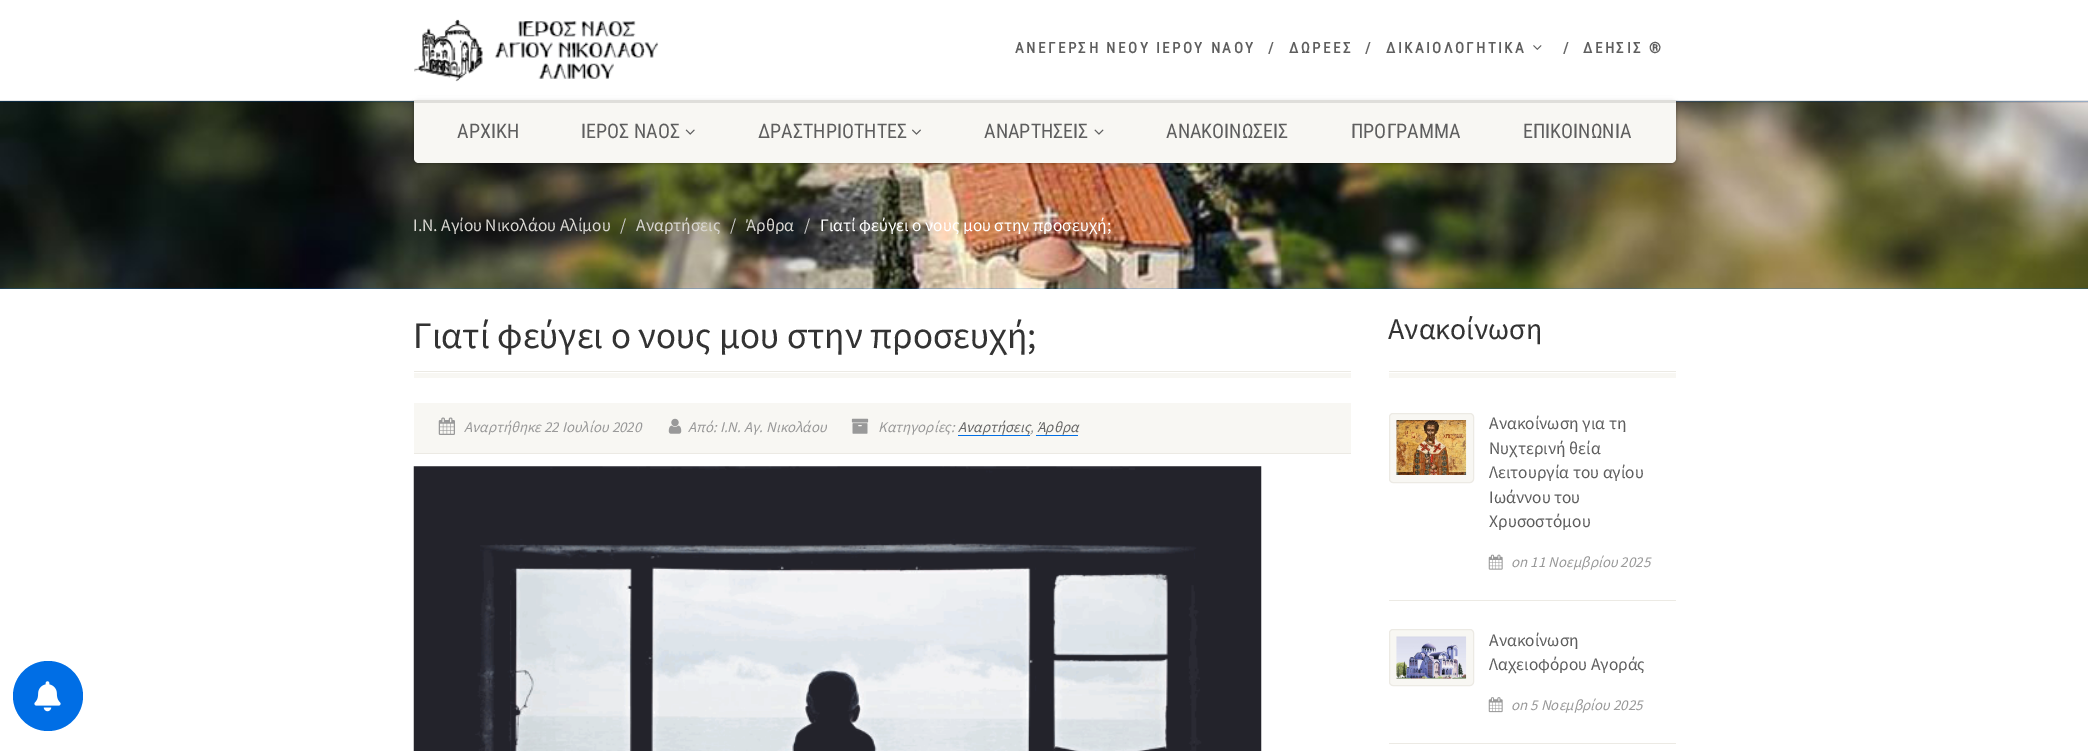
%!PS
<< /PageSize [2088 751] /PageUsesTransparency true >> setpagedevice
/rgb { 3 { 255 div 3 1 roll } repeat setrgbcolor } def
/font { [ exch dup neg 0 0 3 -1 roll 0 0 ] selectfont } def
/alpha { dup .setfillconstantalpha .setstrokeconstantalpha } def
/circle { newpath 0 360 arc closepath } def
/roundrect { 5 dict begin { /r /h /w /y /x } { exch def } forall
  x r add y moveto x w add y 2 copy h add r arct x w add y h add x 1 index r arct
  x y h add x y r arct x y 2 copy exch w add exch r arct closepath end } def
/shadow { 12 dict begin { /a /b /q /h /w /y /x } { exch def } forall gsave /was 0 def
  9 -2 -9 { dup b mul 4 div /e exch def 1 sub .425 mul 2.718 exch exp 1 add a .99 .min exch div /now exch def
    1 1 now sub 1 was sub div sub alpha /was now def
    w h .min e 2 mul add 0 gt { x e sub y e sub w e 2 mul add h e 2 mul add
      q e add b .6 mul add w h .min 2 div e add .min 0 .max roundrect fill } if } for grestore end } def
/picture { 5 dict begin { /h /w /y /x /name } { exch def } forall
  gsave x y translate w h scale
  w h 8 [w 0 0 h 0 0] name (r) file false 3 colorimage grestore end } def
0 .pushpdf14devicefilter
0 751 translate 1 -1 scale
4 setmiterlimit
255 255 255 rgb
0 0 2088 751 rectfill
0 110 229 rgb
48 696 35 circle fill
(img/1.rgb) 34 681 27 31 picture
(img/7.rgb) 0 101 2088 188 picture
0 0 0 rgb
414 100 1262 63 5 2 0.4 shadow
248 247 243 rgb
414 100 moveto 1676 100 lineto 1676 158 lineto 1676 161 1674 163 1671 163 curveto 419 163 lineto 416 163 414 161 414 158 curveto closepath fill
0.1 alpha
0 0 0 rgb
0 100 moveto 0 103 lineto 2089 103 lineto 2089 3 lineto 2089 100 lineto closepath fill
0.8 alpha
255 255 255 rgb
413 96 1264 4 rectfill
1 alpha
(img/2.rgb) 414 19 245 63 picture
(img/3.rgb) 1533 45 9 5 picture
(img/4.rgb) 685 129 10 6 picture
(img/5.rgb) 912 129 9 6 picture
(img/6.rgb) 1094 129 10 6 picture
[
  [414 371 937 1 236 234 228]
  [414 373 937 5 248 247 243]
  [414 403 937 50 248 247 243]
  [414 453 937 1 236 234 228]
] { aload pop rgb rectfill } forall
(img/8.rgb) 438 417 17 18 picture
(img/9.rgb) 668 418 14 16 picture
(img/10.rgb) 851 418 18 16 picture
0 110 229 rgb
958 435 72 1 rectfill
1036 435 42 1 rectfill
(img/11.rgb) 413 466 849 285 picture
[
  [1389 373 287 5 248 247 243]
  [1389 371 287 1 236 234 228]
  [1389 600 287 1 236 234 228]
] { aload pop rgb rectfill } forall
248 247 243 rgb
1389.5 413.5 84 69 3.5 roundrect gsave fill grestore
236 234 228 rgb
stroke
(img/12.rgb) 1396 420 71 55 picture
(img/13.rgb) 1488 554 15 16 picture
1389 743 287 1 rectfill
248 247 243 rgb
1389.5 629.5 84 56 3.5 roundrect gsave fill grestore
236 234 228 rgb
stroke
(img/14.rgb) 1396 636 71 43 picture
(img/15.rgb) 1488 697 15 16 picture
/RobotoCondensed-Bold 15 font
94 94 94 rgb
1015 53 moveto 2.5 0 (ΑΝΕΓΕΡΣΗ ΝΕΟΥ ΙΕΡΟΥ ΝΑΟΥ) ashow
102 102 102 rgb
1268 53 moveto 2.5 0 (/) ashow
94 94 94 rgb
1289 53 moveto 2.5 0 (ΔΩΡΕΕΣ) ashow
102 102 102 rgb
1365 53 moveto 2.5 0 (/) ashow
94 94 94 rgb
1386 53 moveto 2.5 0 (ΔΙΚΑΙΟΛΟΓΗΤΙΚΑ) ashow
102 102 102 rgb
1563 53 moveto 2.5 0 (/) ashow
94 94 94 rgb
1583 53 moveto 2.5 0 (ΔΕΗΣΙΣ ®) ashow
/RobotoCondensed-Regular 20 font
[
  [(ΑΡΧΙΚΗ) 457 138]
  [(ΙΕΡΟΣ ΝΑΟΣ) 581 138]
  [(ΔΡΑΣΤΗΡΙΟΤΗΤΕΣ) 758 138]
  [(ΑΝΑΡΤΗΣΕΙΣ) 984 138]
  [(ΑΝΑΚΟΙΝΩΣΕΙΣ) 1166 138]
  [(ΠΡΟΓΡΑΜΜΑ) 1351 138]
  [(ΕΠΙΚΟΙΝΩΝΙΑ) 1523 138]
] { aload pop moveto show } forall
/SourceSansPro-Regular 17.5 font
216 214 209 rgb
413 231 moveto (Ι.Ν. Αγίου Νικολάου Αλίμου) show
204 204 204 rgb
620 231 moveto (/) show
216 214 209 rgb
636 231 moveto (Αναρτήσεις) show
204 204 204 rgb
730 231 moveto (/) show
216 214 209 rgb
746 231 moveto (Άρθρα) show
204 204 204 rgb
804 231 moveto (/) show
255 255 255 rgb
820 231 moveto (Γιατί φεύγει ο νους μου στην προσευχή;) show
/SourceSansPro-Regular 37.5 font
51 51 51 rgb
413 348 moveto (Γιατί φεύγει ο νους μου στην προσευχή;) show
/SourceSansPro-Italic 15 font
153 153 153 rgb
[
  [(Αναρτήθηκε 22 Ιουλίου 2020) 464 432]
  [(Από: Ι.Ν. Αγ. Νικολάου) 688 432]
  [(Κατηγορίες:) 878 432]
] { aload pop moveto show } forall
102 102 102 rgb
958 432 moveto (Αναρτήσεις) show
153 153 153 rgb
1030 432 moveto (,) show
102 102 102 rgb
1037 432 moveto (Άρθρα) show
/SourceSansPro-Regular 30 font
51 51 51 rgb
1388 339 moveto (Ανακοίνωση) show
/SourceSansPro-Regular 17.5 font
94 94 94 rgb
[
  [(Ανακοίνωση για τη) 1489 429]
  [(Νυχτερινή θεία) 1489 454]
  [(Λειτουργία του αγίου) 1489 478]
  [(Ιωάννου του) 1489 503]
  [(Χρυσοστόμου) 1489 527]
] { aload pop moveto show } forall
/SourceSansPro-Italic 15 font
153 153 153 rgb
1511 567 moveto (on 11 Νοεμβρίου 2025) show
/SourceSansPro-Regular 17.5 font
94 94 94 rgb
1489 646 moveto (Ανακοίνωση) show
1489 670 moveto (Λαχειοφόρου Αγοράς) show
/SourceSansPro-Italic 15 font
153 153 153 rgb
1511 710 moveto (on 5 Νοεμβρίου 2025) show
.poppdf14devicefilter showpage
